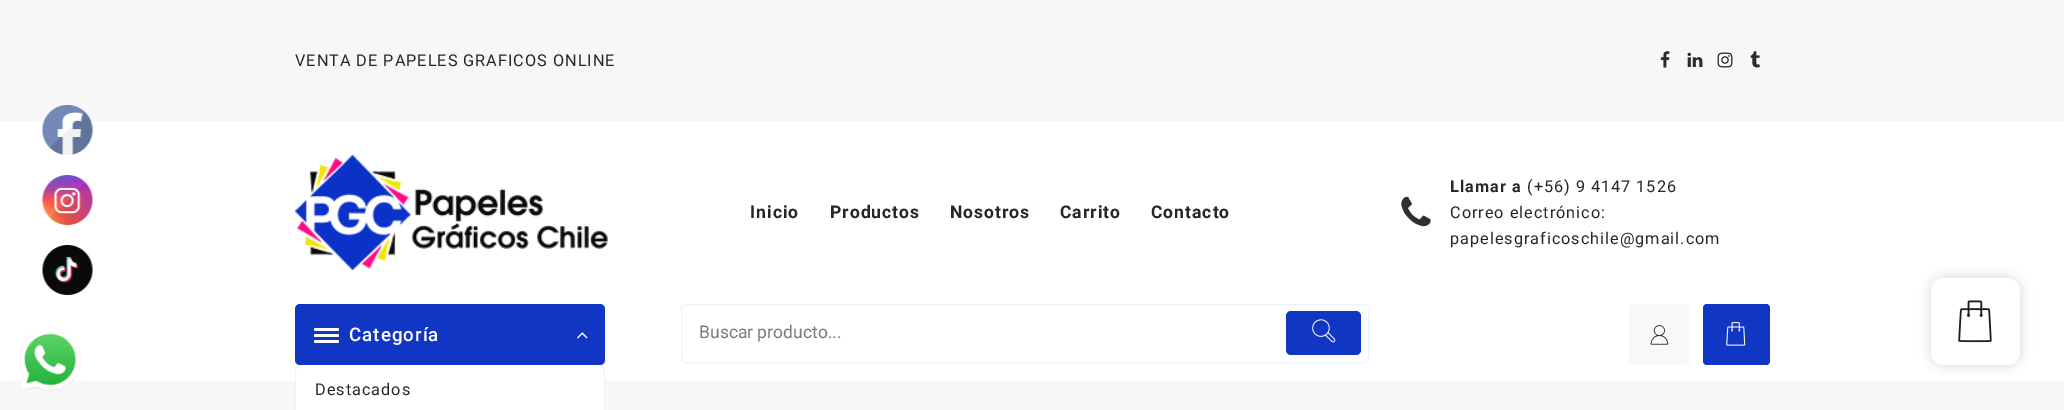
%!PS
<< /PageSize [2064 410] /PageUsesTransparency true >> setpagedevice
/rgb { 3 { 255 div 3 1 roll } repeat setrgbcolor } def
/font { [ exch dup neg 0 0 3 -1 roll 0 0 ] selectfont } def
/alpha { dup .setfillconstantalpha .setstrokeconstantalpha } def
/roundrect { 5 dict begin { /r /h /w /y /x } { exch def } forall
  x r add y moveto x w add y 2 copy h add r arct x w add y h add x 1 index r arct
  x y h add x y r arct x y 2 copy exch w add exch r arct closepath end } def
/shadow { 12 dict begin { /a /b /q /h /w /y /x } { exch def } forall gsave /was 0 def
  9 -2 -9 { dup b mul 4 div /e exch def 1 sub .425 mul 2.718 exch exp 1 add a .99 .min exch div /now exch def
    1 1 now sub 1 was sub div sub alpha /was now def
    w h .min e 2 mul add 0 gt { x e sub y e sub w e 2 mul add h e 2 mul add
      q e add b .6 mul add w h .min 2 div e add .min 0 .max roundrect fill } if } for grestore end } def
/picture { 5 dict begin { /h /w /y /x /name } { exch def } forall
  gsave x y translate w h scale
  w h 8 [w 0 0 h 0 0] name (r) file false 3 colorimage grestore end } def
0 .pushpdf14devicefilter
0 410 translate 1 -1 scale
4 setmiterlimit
247 247 247 rgb
0 0 2064 410 rectfill
255 255 255 rgb
0 121 2064 260 rectfill
(img/1.rgb) 42 105 51 50 picture
(img/2.rgb) 42 175 51 50 picture
(img/3.rgb) 42 245 51 50 picture
(img/4.rgb) 1660 51 10 17 picture
(img/5.rgb) 1687 52 16 15 picture
(img/6.rgb) 1717 52 16 16 picture
(img/7.rgb) 1750 51 10 17 picture
(img/8.rgb) 295 155 313 115 picture
(img/9.rgb) 1401 196 30 31 picture
17 54 196 rgb
295 304 310 61 5 roundrect fill
255 255 255 rgb
314 328 25 3 1.5 roundrect fill
314 334 25 3 1.5 roundrect fill
314 340 25 3 1.5 roundrect fill
(img/10.rgb) 577 332 11 7 picture
295 365 310 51 6 roundrect fill
241 241 241 rgb
301 365 moveto 599 365 lineto 602 365 605 368 605 371 curveto 605 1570 lineto 605 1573 602 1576 599 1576 curveto 301 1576 lineto 298 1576 295 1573 295 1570 curveto 295 371 lineto 295 368 298 365 301 365 curveto closepath 301 365 moveto 599 365 lineto 602 365 604 368 604 371 curveto 604 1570 lineto 604 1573 602 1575 599 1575 curveto 301 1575 lineto 298 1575 296 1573 296 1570 curveto 296 371 lineto 296 368 298 365 301 365 curveto closepath eofill
232 245 255 rgb
681.5 304.5 687 58 4.5 roundrect stroke
255 255 255 rgb
683 305 2 1 rectfill
17 54 196 rgb
1286 311 75 44 5 roundrect fill
(img/11.rgb) 1312 319 24 24 picture
247 248 249 rgb
1629 304 61 61 5 roundrect fill
(img/12.rgb) 1650 325 19 20 picture
17 54 196 rgb
1703 304 67 61 4 roundrect fill
(img/13.rgb) 1726 322 20 24 picture
(img/15.rgb) 19 329 62 62 picture
183 183 183 rgb
1931 278 89 87 13 6 0.6 shadow
255 255 255 rgb
1931 278 89 87 13 roundrect fill
(img/16.rgb) 1958 300 34 43 picture
/Roboto-Regular 16.25 font
37 38 39 rgb
295 66 moveto 1 0 (VENTA DE PAPELES GRAFICOS ONLINE) ashow
/Roboto-Bold 17.5 font
750 218 moveto 1 0 (Inicio) ashow
830 218 moveto 1 0 (Productos) ashow
950 218 moveto 1 0 (Nosotros) ashow
1060 218 moveto 1 0 (Carrito) ashow
1151 218 moveto 1 0 (Contacto) ashow
/Roboto-Bold 16.25 font
1450 192 moveto 1 0 (Llamar a) ashow
/Roboto-Regular 16.25 font
1527 192 moveto 1 0 (\(+56\) 9 4147 1526) ashow
1450 218 moveto 1 0 (Correo electrónico:) ashow
1450 244 moveto 1 0 (papelesgraficoschile@gmail.com) ashow
/Roboto-Medium 18.75 font
255 255 255 rgb
349 341 moveto 1 0 (Categoría) ashow
/Roboto-Regular 16.25 font
37 38 39 rgb
315 395 moveto 1 0 (Destacados) ashow
/Roboto-Regular 17.5 font
122 122 122 rgb
699 338 moveto (Buscar producto...) show
(img/14.rgb) 1014 200 22 16 picture
.poppdf14devicefilter showpage
